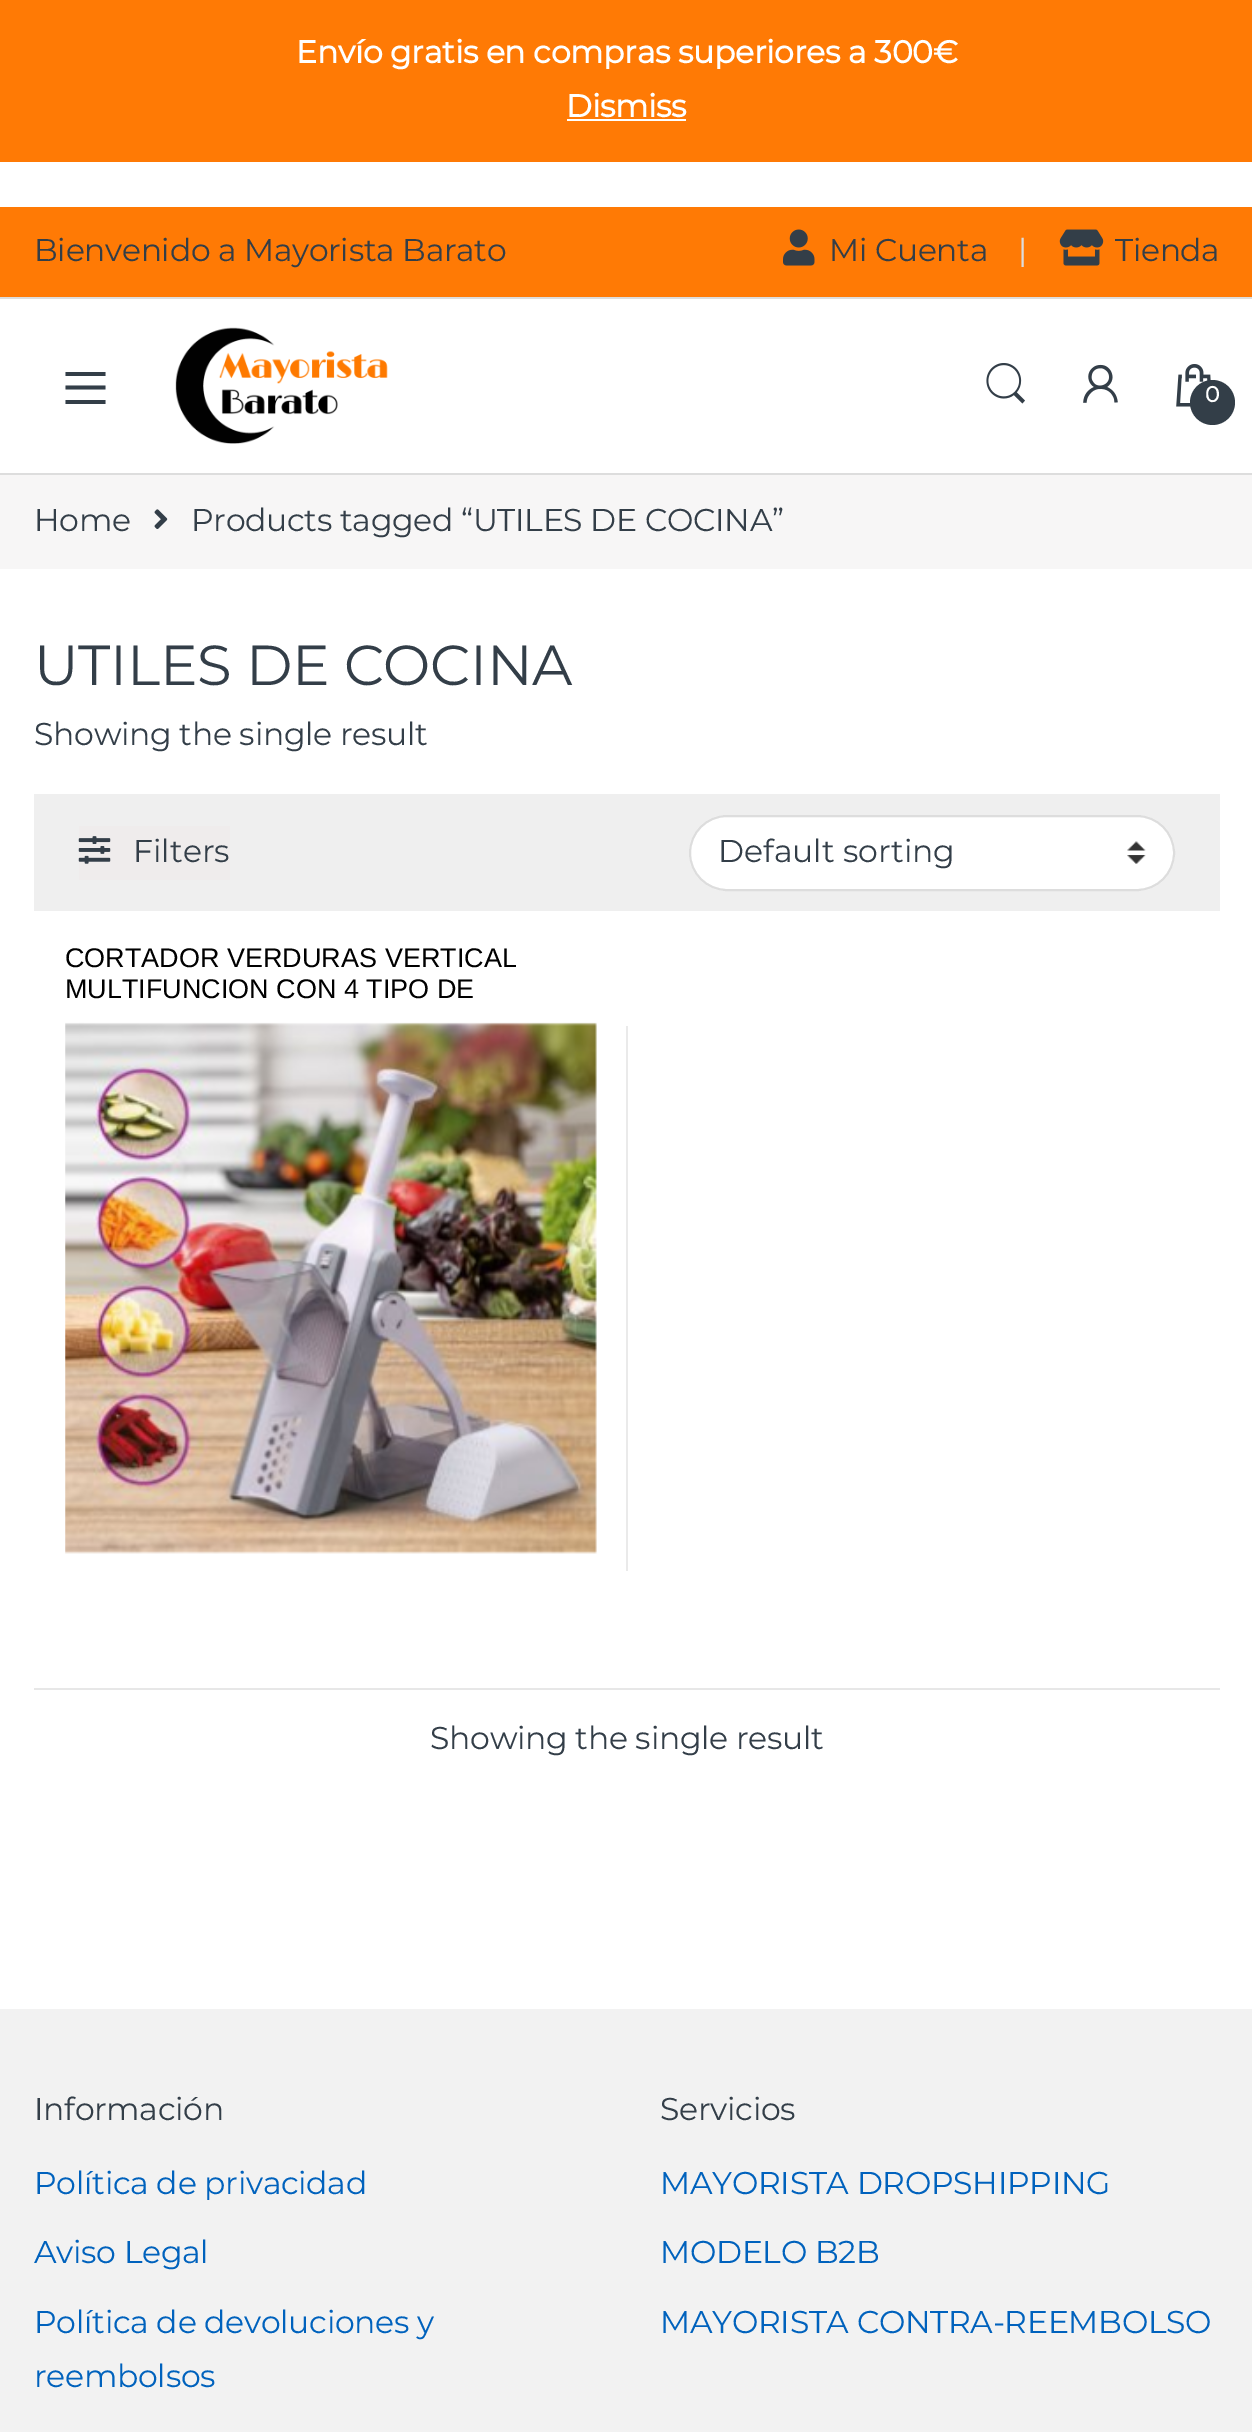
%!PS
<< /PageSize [1252 2432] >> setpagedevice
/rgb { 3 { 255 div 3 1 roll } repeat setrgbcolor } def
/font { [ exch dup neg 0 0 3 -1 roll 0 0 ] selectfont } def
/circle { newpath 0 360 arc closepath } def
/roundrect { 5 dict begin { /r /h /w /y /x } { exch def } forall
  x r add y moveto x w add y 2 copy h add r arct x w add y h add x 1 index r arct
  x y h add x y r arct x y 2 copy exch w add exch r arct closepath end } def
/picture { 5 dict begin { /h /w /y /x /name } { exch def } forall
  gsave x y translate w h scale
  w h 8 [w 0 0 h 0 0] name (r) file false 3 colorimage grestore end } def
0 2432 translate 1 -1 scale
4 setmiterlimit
255 255 255 rgb
0 0 1252 2432 rectfill
[
  [0 0 1252 162 255 122 5]
  [567 119 119 2 255 255 255]
  [0 207 1252 90 255 122 5]
  [0 297 1252 2 221 221 221]
] { aload pop rgb rectfill } forall
(img/1.rgb) 783 229 32 37 picture
(img/2.rgb) 1059 229 45 37 picture
0 473 1252 2 rectfill
51 62 72 rgb
65.5 404 moveto 65.5 400 lineto 105.5 400 lineto 105.5 404 lineto closepath 65.5 385.5 moveto 105.5 385.5 lineto 105.5 389.5 lineto 65.5 389.5 lineto closepath 65.5 372 moveto 105.5 372 lineto 105.5 376 lineto 65.5 376 lineto closepath fill
(img/3.rgb) 175 327 213 117 picture
(img/4.rgb) 986 363 39 41 picture
(img/5.rgb) 1083 364 35 39 picture
(img/6.rgb) 1176 364 35 43 picture
1212.5 402.5 22.5 circle fill
247 246 246 rgb
0 475 1252 94 rectfill
(img/7.rgb) 154 509 14 20 picture
239 239 239 rgb
34 794 1186 117 rectfill
239 236 236 rgb
79 826 151 54 rectfill
(img/8.rgb) 78 836 33 28 picture
255 255 255 rgb
689 815 486 76 38 roundrect fill
(img/9.rgb) 1127 841 19 23 picture
221 221 221 rgb
2 setlinewidth
690 816 484 74 37 roundrect stroke
(img/10.rgb) 65 1022 532 532 picture
[
  [626 1026 2 545 234 234 234]
  [34 1688 1186 2 231 231 231]
  [0 2009 1252 423 242 242 242]
] { aload pop rgb rectfill } forall
/Montserrat-Bold 31.5 font
255 255 255 rgb
296 63 moveto -0.3 0 (Envío gratis en compras superiores a 300€) ashow
566 117 moveto -0.3 0 (Dismiss) ashow
/Montserrat-Thin 31.4 font
51 62 72 rgb
34 261 moveto -0.3 0 (Bienvenido a Mayorista Barato) ashow
829 261 moveto -0.3 0 (Mi Cuenta) ashow
221 221 221 rgb
1018 261 moveto -0.3 0 (|) ashow
51 62 72 rgb
1115 261 moveto -0.3 0 (Tienda) ashow
/Montserrat-Bold 22 font
255 255 255 rgb
1205 402 moveto -0.3 0 (0) ashow
/Montserrat-Thin 31.5 font
51 62 72 rgb
34 531 moveto -0.3 0 (Home) ashow
191 531 moveto -0.3 0 (Products tagged “UTILES DE COCINA”) ashow
/Montserrat-Thin 56.25 font
34 685 moveto -0.3 0 (UTILES DE COCINA) ashow
/Montserrat-Thin 31.5 font
34 745 moveto -0.3 0 (Showing the single result) ashow
133 862 moveto (Filters) show
718 862 moveto (Default sorting) show
/LiberationSans-Regular 27 font
0 0 0 rgb
65 967 moveto (CORTADOR VERDURAS VERTICAL) show
65 998 moveto (MULTIFUNCION CON 4 TIPO DE) show
/Montserrat-Thin 31.5 font
51 62 72 rgb
430 1749 moveto -0.3 0 (Showing the single result) ashow
34 2120 moveto -0.3 0 (Información) ashow
0 98 189 rgb
34 2194 moveto -0.3 0 (Política de privacidad) ashow
34 2263 moveto -0.3 0 (Aviso Legal) ashow
34 2333 moveto -0.3 0 (Política de devoluciones y) ashow
34 2387 moveto -0.3 0 (reembolsos) ashow
51 62 72 rgb
660 2120 moveto -0.3 0 (Servicios) ashow
0 98 189 rgb
660 2194 moveto -0.3 0 (MAYORISTA DROPSHIPPING) ashow
660 2263 moveto -0.3 0 (MODELO B2B) ashow
660 2333 moveto -0.3 0 (MAYORISTA CONTRA-REEMBOLSO) ashow
showpage
